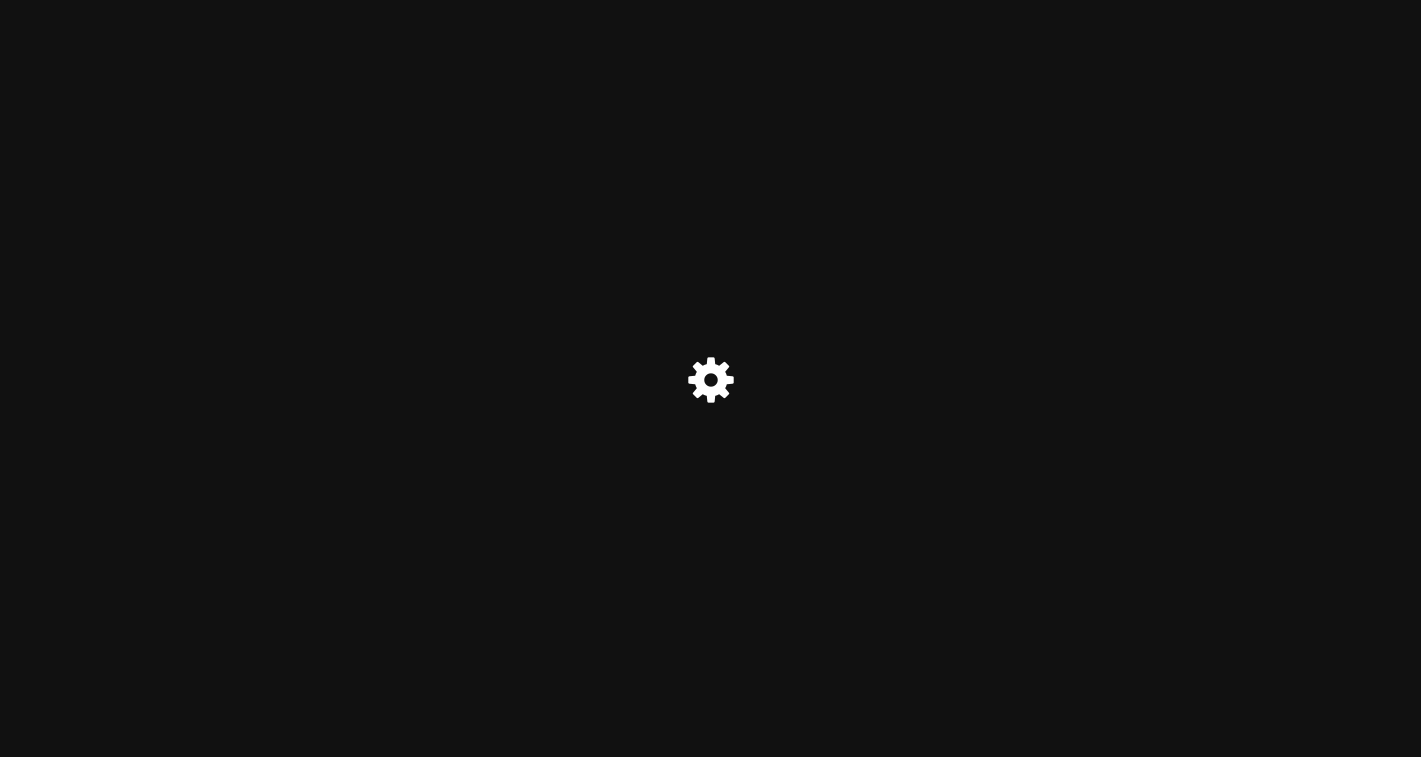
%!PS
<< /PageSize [1421 757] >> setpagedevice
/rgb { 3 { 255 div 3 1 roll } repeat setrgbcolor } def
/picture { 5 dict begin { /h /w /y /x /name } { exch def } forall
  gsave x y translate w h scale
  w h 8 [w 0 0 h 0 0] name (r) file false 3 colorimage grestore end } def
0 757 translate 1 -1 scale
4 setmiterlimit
17 17 17 rgb
0 0 1421 757 rectfill
(img/1.rgb) 688 357 46 46 picture
showpage
